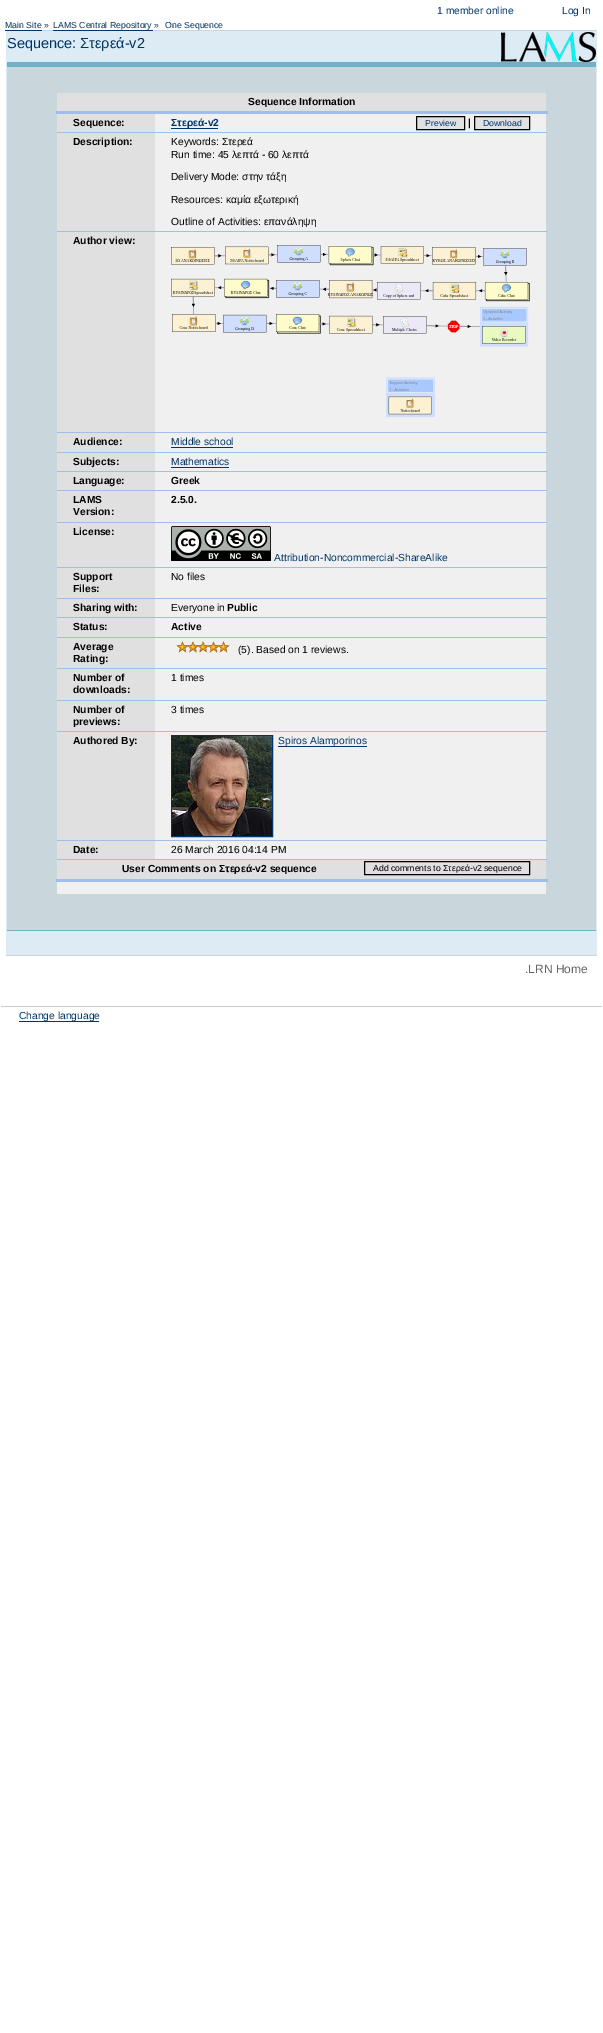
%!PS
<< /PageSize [603 2033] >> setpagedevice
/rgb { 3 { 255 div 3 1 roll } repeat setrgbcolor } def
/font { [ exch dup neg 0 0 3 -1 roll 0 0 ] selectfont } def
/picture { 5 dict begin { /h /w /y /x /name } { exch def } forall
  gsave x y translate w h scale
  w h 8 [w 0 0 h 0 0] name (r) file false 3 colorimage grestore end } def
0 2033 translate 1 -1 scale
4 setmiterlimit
255 255 255 rgb
0 0 603 2033 rectfill
[
  [5 30 37 1 0 51 102]
  [42 30 555 1 201 215 220]
  [53 30 100 1 0 51 102]
  [6 31 591 924 221 235 245]
  [6 955 591 1 201 215 220]
] { aload pop rgb rectfill } forall
(img/1.rgb) 501 32 95 30 picture
[
  [7 67 589 863 201 215 220]
  [7 62 589 5 109 178 201]
  [7 930 589 1 109 178 201]
  [57 93 489 18 224 224 224]
  [56 111 492 3 160 189 235]
  [57 114 98 18 224 224 224]
  [155 114 391 18 240 240 240]
  [57 132 490 1 160 189 235]
  [171 128 47 1 0 51 102]
] { aload pop rgb rectfill } forall
225 225 225 rgb
416.5 116.5 moveto 464.5 116.5 lineto 464.5 129.5 lineto 416.5 129.5 lineto closepath gsave fill grestore
0 0 0 rgb
stroke
225 225 225 rgb
474.5 116.5 moveto 529.5 116.5 lineto 529.5 129.5 lineto 474.5 129.5 lineto closepath gsave fill grestore
0 0 0 rgb
stroke
[
  [57 133 98 98 224 224 224]
  [155 133 391 98 240 240 240]
  [57 231 490 1 160 189 235]
  [155 232 391 200 240 240 240]
  [57 432 490 1 160 189 235]
] { aload pop rgb rectfill } forall
(img/2.rgb) 171 245 359 173 picture
[
  [57 232 98 200 224 224 224]
  [57 433 98 19 224 224 224]
  [155 433 391 19 240 240 240]
  [57 452 490 1 160 189 235]
  [171 447 62 1 0 51 102]
  [57 453 98 18 224 224 224]
  [155 453 391 18 240 240 240]
  [57 471 490 1 160 189 235]
  [171 467 58 1 0 51 102]
  [57 472 98 18 224 224 224]
  [155 472 391 18 240 240 240]
  [57 490 490 1 160 189 235]
  [57 491 98 31 224 224 224]
  [155 491 391 31 240 240 240]
  [57 522 490 1 160 189 235]
  [57 523 98 44 224 224 224]
  [155 523 391 44 240 240 240]
  [57 567 490 1 160 189 235]
] { aload pop rgb rectfill } forall
(img/3.rgb) 171 526 100 35 picture
[
  [57 568 98 30 224 224 224]
  [155 568 391 30 240 240 240]
  [57 598 490 1 160 189 235]
  [57 599 98 18 224 224 224]
  [155 599 391 18 240 240 240]
  [57 617 490 1 160 189 235]
  [57 618 98 19 224 224 224]
  [155 618 391 19 240 240 240]
  [57 637 490 1 160 189 235]
  [57 638 98 30 224 224 224]
  [155 638 391 30 240 240 240]
  [57 668 490 1 160 189 235]
] { aload pop rgb rectfill } forall
(img/4.rgb) 175 641 56 12 picture
[
  [57 669 98 31 224 224 224]
  [155 669 391 31 240 240 240]
  [57 700 490 1 160 189 235]
  [57 701 98 30 224 224 224]
  [155 701 391 30 240 240 240]
  [57 731 490 1 160 189 235]
  [57 732 98 108 224 224 224]
  [155 732 391 108 240 240 240]
  [57 840 490 1 160 189 235]
] { aload pop rgb rectfill } forall
0 51 102 rgb
171.5 735.5 101 101 rectstroke
(img/5.rgb) 172 736 100 100 picture
[
  [278 746 89 1 0 51 102]
  [57 841 98 18 224 224 224]
  [155 841 391 18 240 240 240]
  [57 859 490 1 160 189 235]
  [57 860 489 19 224 224 224]
  [56 879 492 3 160 189 235]
] { aload pop rgb rectfill } forall
0 0 0 rgb
364.5 861.5 165 13 rectstroke
[
  [57 882 489 12 240 240 240]
  [1 1006 601 1 204 204 204]
  [19 1021 80 1 0 51 102]
] { aload pop rgb rectfill } forall
/LiberationSans-Regular 10.25 font
437 14 moveto (1 member online) show
562 14 moveto (Log In) show
/LiberationSans-Regular 8.75 font
[
  [(Main Site ») 5 28]
  [(LAMS Central Repository ») 53 28]
  [(One Sequence) 165 28]
] { aload pop moveto show } forall
/LiberationSans-Regular 14.5 font
7 48 moveto (Sequence: Στερεά-v2) show
/LiberationSans-Bold 10.25 font
0 0 0 rgb
248 105 moveto (Sequence Information) show
73 126 moveto (Sequence:) show
0 51 102 rgb
171 126 moveto (Στερεά-v2) show
/LiberationSans-Regular 8.7 font
425 126 moveto (Preview) show
/LiberationSans-Bold 10.25 font
0 0 0 rgb
468 126 moveto (|) show
/LiberationSans-Regular 8.7 font
0 51 102 rgb
483 126 moveto (Download) show
/LiberationSans-Bold 10.25 font
0 0 0 rgb
73 145 moveto (Description:) show
/LiberationSans-Regular 10.25 font
[
  [(Keywords: Στερεά) 171 145]
  [(Run time: 45 λεπτά - 60 λεπτά) 171 158]
  [(Delivery Mode: στην τάξη) 171 180]
  [(Resources: καμία εξωτερική) 171 203]
  [(Outline of Activities: επανάληψη) 171 225]
] { aload pop moveto show } forall
/LiberationSans-Bold 10.25 font
73 244 moveto (Author view:) show
73 445 moveto (Audience:) show
/LiberationSans-Regular 10.25 font
0 51 102 rgb
171 445 moveto (Middle school) show
/LiberationSans-Bold 10.25 font
0 0 0 rgb
73 465 moveto (Subjects:) show
/LiberationSans-Regular 10.25 font
0 51 102 rgb
171 465 moveto (Mathematics) show
/LiberationSans-Bold 10.25 font
0 0 0 rgb
[
  [(Language:) 73 484]
  [(Greek) 171 484]
  [(LAMS) 73 503]
  [(Version:) 73 515]
  [(2.5.0.) 171 503]
  [(License:) 73 535]
] { aload pop moveto show } forall
/LiberationSans-Regular 10.25 font
0 51 102 rgb
274 561 moveto (Attribution-Noncommercial-ShareAlike) show
/LiberationSans-Bold 10.25 font
0 0 0 rgb
73 580 moveto (Support) show
73 592 moveto (Files:) show
/LiberationSans-Regular 10.25 font
171 580 moveto (No files) show
/LiberationSans-Bold 10.25 font
73 611 moveto (Sharing with:) show
/LiberationSans-Regular 10.25 font
171 611 moveto (Everyone in) show
/LiberationSans-Bold 10.25 font
[
  [(Public) 227 611]
  [(Status:) 73 630]
  [(Active) 171 630]
  [(Average) 73 650]
  [(Rating:) 73 662]
] { aload pop moveto show } forall
/LiberationSans-Regular 10.25 font
238 653 moveto (\(5\). Based on 1 reviews.) show
/LiberationSans-Bold 10.25 font
73 681 moveto (Number of) show
73 693 moveto (downloads:) show
/LiberationSans-Regular 10.25 font
171 681 moveto (1 times) show
/LiberationSans-Bold 10.25 font
73 713 moveto (Number of) show
73 725 moveto (previews:) show
/LiberationSans-Regular 10.25 font
171 713 moveto (3 times) show
/LiberationSans-Bold 10.25 font
73 744 moveto (Authored By:) show
/LiberationSans-Regular 10.25 font
0 51 102 rgb
278 744 moveto (Spiros Alamporinos) show
/LiberationSans-Bold 10.25 font
0 0 0 rgb
73 853 moveto (Date:) show
/LiberationSans-Regular 10.25 font
171 853 moveto (26 March 2016 04:14 PM) show
/LiberationSans-Bold 10.25 font
122 872 moveto (User Comments on Στερεά-v2 sequence) show
/LiberationSans-Regular 8.7 font
373 871 moveto (Add comments to Στερεά-v2 sequence) show
/LiberationSans-Regular 12 font
102 102 102 rgb
525 973 moveto (.LRN Home) show
/LiberationSans-Regular 10.25 font
0 51 102 rgb
19 1019 moveto (Change language) show
showpage
